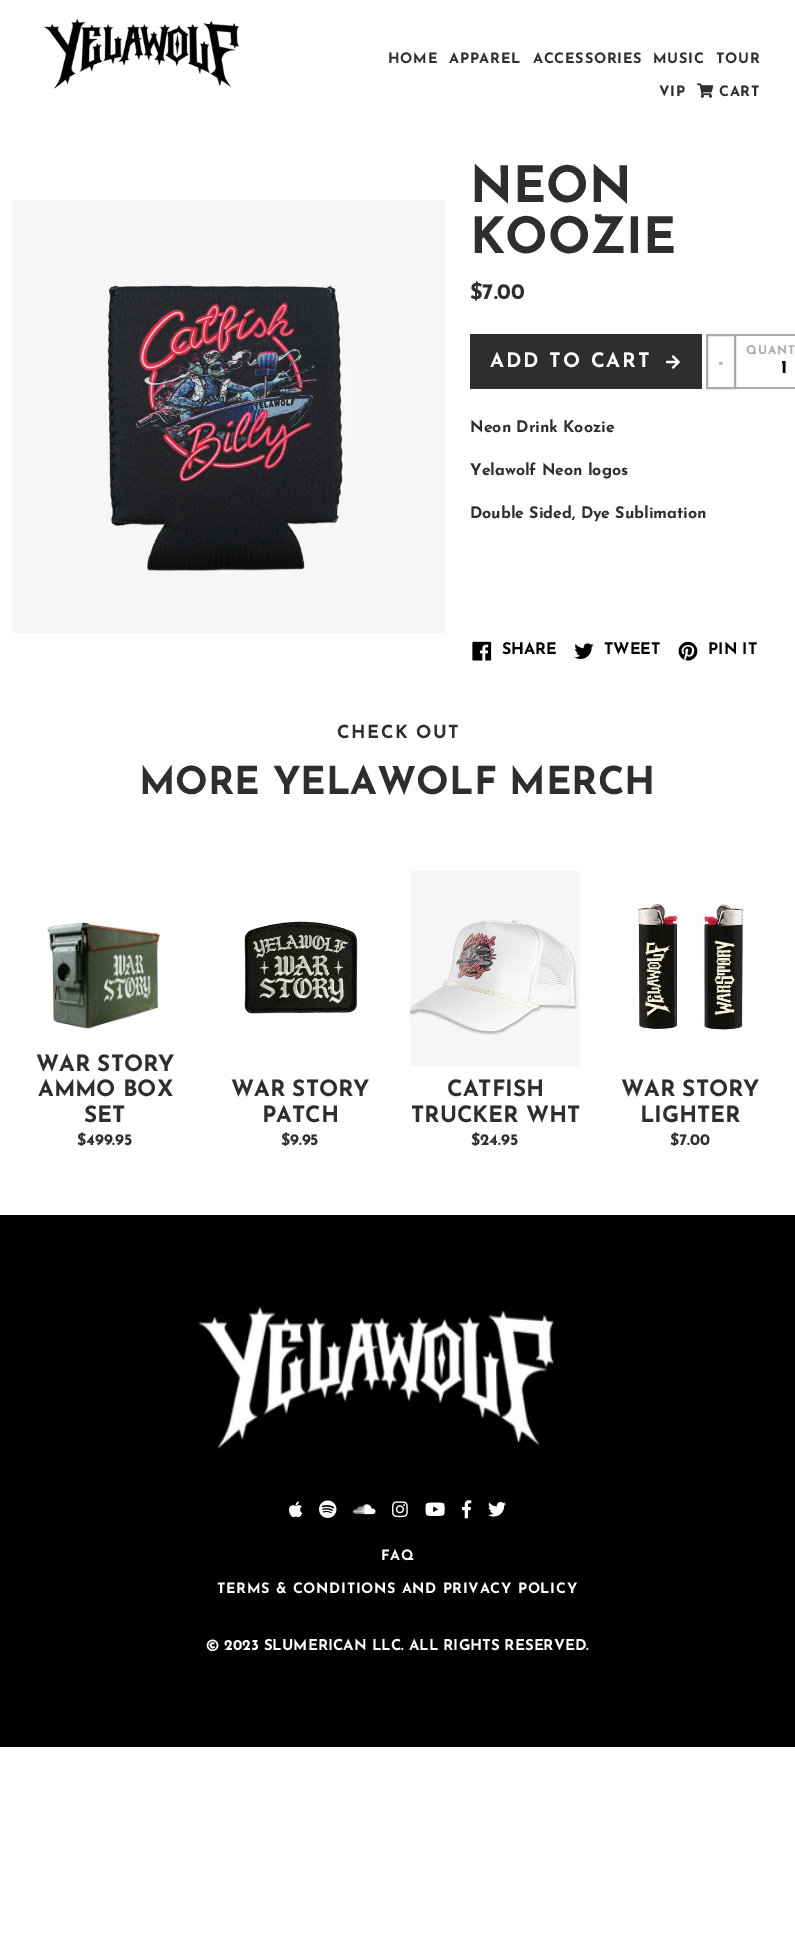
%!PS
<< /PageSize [795 1955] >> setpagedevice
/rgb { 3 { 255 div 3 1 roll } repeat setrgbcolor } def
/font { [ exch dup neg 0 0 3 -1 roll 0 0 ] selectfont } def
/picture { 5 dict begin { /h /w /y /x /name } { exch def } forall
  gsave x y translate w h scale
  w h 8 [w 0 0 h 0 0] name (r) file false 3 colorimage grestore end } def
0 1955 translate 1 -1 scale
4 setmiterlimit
255 255 255 rgb
0 0 795 1955 rectfill
(img/1.rgb) 43 19 197 70 picture
(img/2.rgb) 697 83 17 15 picture
(img/3.rgb) 12 200 434 433 picture
46 46 46 rgb
470 334 232 55 rectfill
(img/4.rgb) 666 355 14 14 picture
170 170 170 rgb
2 setlinewidth
707 335 28 53 rectstroke
736 334 59 2 rectfill
736 387 59 2 rectfill
(img/5.rgb) 472 641 20 20 picture
(img/6.rgb) 574 643 20 16 picture
(img/7.rgb) 678 641 20 20 picture
(img/8.rgb) 47 922 114 107 picture
(img/9.rgb) 243 921 116 93 picture
(img/10.rgb) 410 871 170 195 picture
(img/11.rgb) 638 902 107 129 picture
0 0 0 rgb
0 1215 795 532 rectfill
(img/12.rgb) 198 1306 357 143 picture
(img/13.rgb) 289 1501 14 17 picture
(img/14.rgb) 319 1500 18 18 picture
(img/15.rgb) 353 1504 23 11 picture
(img/16.rgb) 392 1501 16 17 picture
(img/17.rgb) 425 1502 20 14 picture
(img/18.rgb) 462 1500 10 19 picture
(img/19.rgb) 488 1501 18 16 picture
/JosefinSans-Bold 14.4 font
46 46 46 rgb
388 63 moveto 0.7 0 (HOME) ashow
449 63 moveto 0.7 0 (APPAREL) ashow
533 63 moveto 0.7 0 (ACCESSORIES) ashow
653 63 moveto 0.7 0 (MUSIC) ashow
716 63 moveto 0.7 0 (TOUR) ashow
659 96 moveto 0.7 0 (VIP) ashow
719 96 moveto 0.7 0 (CART) ashow
/JosefinSans-Bold 50 font
470 202 moveto (NEON) show
470 253 moveto (KOOZIE) show
/JosefinSans-Bold 22 font
470 299 moveto ($7.00) show
/JosefinSans-Bold 20 font
255 255 255 rgb
490 367 moveto 2 0 (ADD TO CART) ashow
/JosefinSans-Bold 12 font
170 170 170 rgb
746 354 moveto 1 0 (QUANT) ashow
/JosefinSans-Bold 20 font
718 368 moveto (-) show
/JosefinSans-Bold 18 font
0 0 0 rgb
781 373 moveto (1) show
/JosefinSans-Bold 16 font
46 46 46 rgb
[
  [(Neon Drink Koozie) 470 432]
  [(Yelawolf Neon logos) 470 475]
  [(Double Sided, Dye Sublimation) 470 518]
] { aload pop moveto show } forall
0 0 0 rgb
[
  [(SHARE) 502 654]
  [(TWEET) 604 654]
  [(PIN IT) 708 654]
] { aload pop moveto show } forall
/JosefinSans-Bold 18 font
46 46 46 rgb
337 738 moveto 1.5 0 (CHECK OUT) ashow
/JosefinSans-Bold 38.4 font
139 794 moveto (MORE YELAWOLF MERCH) show
/JosefinSans-Bold 22.5 font
[
  [(WAR STORY) 36 1071]
  [(AMMO BOX) 38 1096]
  [(SET) 84 1122]
] { aload pop moveto show } forall
/JosefinSans-Bold 16 font
77 1145 moveto ($499.95) show
/JosefinSans-Bold 22.5 font
231 1096 moveto (WAR STORY) show
262 1122 moveto (PATCH) show
/JosefinSans-Bold 16 font
281 1145 moveto ($9.95) show
/JosefinSans-Bold 22.5 font
447 1096 moveto (CATFISH) show
411 1122 moveto (TRUCKER WHT) show
/JosefinSans-Bold 16 font
471 1145 moveto ($24.95) show
/JosefinSans-Bold 22.5 font
621 1096 moveto (WAR STORY) show
640 1122 moveto (LIGHTER) show
/JosefinSans-Bold 16 font
670 1145 moveto ($7.00) show
/JosefinSans-Bold 14.4 font
255 255 255 rgb
381 1560 moveto 0.7 0 (FAQ) ashow
217 1593 moveto 0.7 0 (TERMS & CONDITIONS AND PRIVACY POLICY) ashow
/JosefinSans-Bold 15 font
206 1650 moveto (© 2023 SLUMERICAN LLC. ALL RIGHTS RESERVED.) show
showpage
